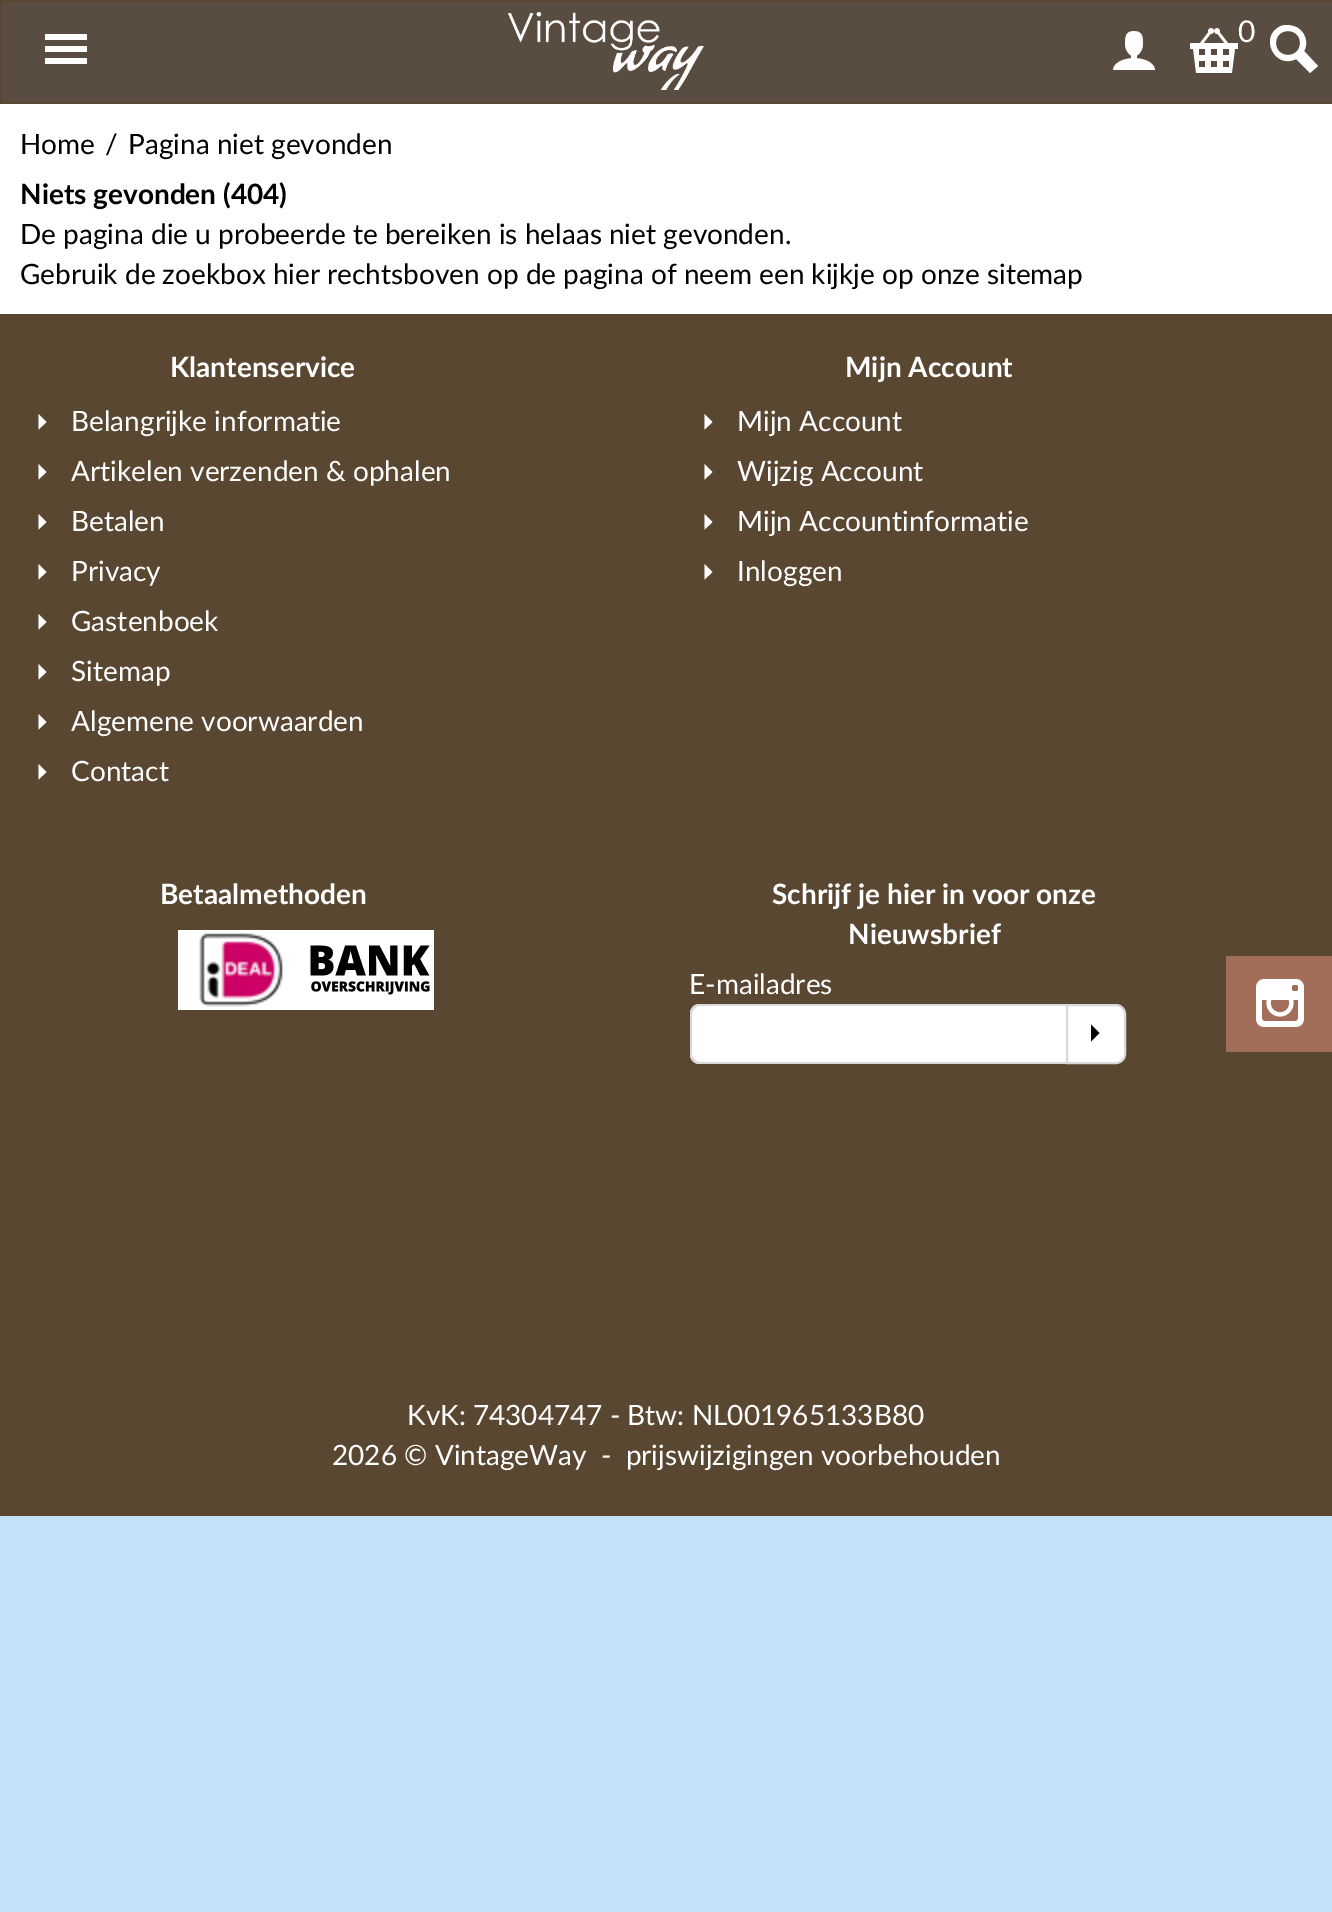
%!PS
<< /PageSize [1332 1912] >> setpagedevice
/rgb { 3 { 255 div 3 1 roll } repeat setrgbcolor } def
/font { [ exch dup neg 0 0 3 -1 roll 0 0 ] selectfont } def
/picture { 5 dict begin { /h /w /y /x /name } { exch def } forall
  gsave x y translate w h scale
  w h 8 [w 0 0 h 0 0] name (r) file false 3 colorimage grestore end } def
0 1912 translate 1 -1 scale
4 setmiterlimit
195 225 247 rgb
0 0 1332 1912 rectfill
89 77 65 rgb
1 1 moveto 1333 1 lineto 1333 103 lineto 1 103 lineto closepath gsave fill grestore
89 71 50 rgb
2 setlinewidth
stroke
255 255 255 rgb
45 34 moveto 87 34 lineto 87 40 lineto 45 40 lineto closepath 45 46 moveto 87 46 lineto 87 52 lineto 45 52 lineto closepath 45 58 moveto 87 58 lineto 87 64 lineto 45 64 lineto closepath fill
(img/1.rgb) 507 11 197 79 picture
(img/2.rgb) 1113 31 42 39 picture
(img/3.rgb) 1190 28 48 45 picture
1318 66 moveto 1304 51 lineto 1309 43 1305 31 1296 27 curveto 1291 25 1286 24 1281 26 curveto 1258 36 1275 70 1296 59 curveto 1310 73 lineto closepath 1276 43 moveto 1276 27 1300 27 1300 43 curveto 1300 59 1276 59 1276 43 curveto closepath fill
0 104 1332 210 rectfill
89 71 50 rgb
0 314 1332 1202 rectfill
255 255 255 rgb
38.5 429.5 moveto 46.5 422 lineto 38.5 414 lineto closepath fill
38.5 479.5 moveto 46.5 472 lineto 38.5 464 lineto closepath fill
38.5 529.5 moveto 46.5 522 lineto 38.5 514 lineto closepath fill
38.5 579.5 moveto 46.5 572 lineto 38.5 564 lineto closepath fill
38.5 629.5 moveto 46.5 622 lineto 38.5 614 lineto closepath fill
38.5 679.5 moveto 46.5 672 lineto 38.5 664 lineto closepath fill
38.5 729.5 moveto 46.5 722 lineto 38.5 714 lineto closepath fill
38.5 779.5 moveto 46.5 772 lineto 38.5 764 lineto closepath fill
704.5 429.5 moveto 712.5 422 lineto 704.5 414 lineto closepath fill
704.5 479.5 moveto 712.5 472 lineto 704.5 464 lineto closepath fill
704.5 529.5 moveto 712.5 522 lineto 704.5 514 lineto closepath fill
704.5 579.5 moveto 712.5 572 lineto 704.5 564 lineto closepath fill
(img/4.rgb) 178 930 128 80 picture
(img/5.rgb) 306 930 128 80 picture
700 1004 moveto 1066 1004 lineto 1066 1064 lineto 700 1064 lineto 694.5 1064 690 1059.5 690 1054 curveto 690 1014 lineto 690 1008.5 694.5 1004 700 1004 curveto closepath fill
217 217 217 rgb
700 1004 moveto 1066 1004 lineto 1066 1064 lineto 700 1064 lineto 694 1064 690 1060 690 1054 curveto 690 1014 lineto 690 1008 694 1004 700 1004 curveto closepath 700 1006 moveto 1066 1006 lineto 1066 1062 lineto 700 1062 lineto 696 1062 692 1058 692 1054 curveto 692 1014 lineto 692 1010 696 1006 700 1006 curveto closepath eofill
255 255 255 rgb
1067 1005 moveto 1116 1005 lineto 1121 1005 1125 1009 1125 1014 curveto 1125 1054 lineto 1125 1059 1121 1063 1116 1063 curveto 1067 1063 lineto closepath gsave fill grestore
217 217 217 rgb
stroke
0 0 0 rgb
1091 1041.5 moveto 1099.5 1033 lineto 1091 1024.5 lineto closepath fill
162 110 89 rgb
1226 956 106 96 rectfill
(img/6.rgb) 1256 979 48 48 picture
/Lato-Regular 30 font
255 255 255 rgb
1238 42 moveto (0) show
/Lato-Regular 28 font
0 0 0 rgb
[
  [(Home) 20 154]
  [(/) 105 154]
  [(Pagina niet gevonden) 128 154]
] { aload pop moveto show } forall
/Lato-Bold 28 font
20 204 moveto (Niets gevonden \(404\)) show
/Lato-Regular 28 font
20 244 moveto (De pagina die u probeerde te bereiken is helaas niet gevonden.) show
20 284 moveto (Gebruik de zoekbox hier rechtsboven op de pagina of neem een kijkje op onze sitemap) show
/Lato-Bold 28 font
255 255 255 rgb
170 377 moveto (Klantenservice) show
/Lato-Regular 28 font
[
  [(Belangrijke informatie) 71 431]
  [(Artikelen verzenden & ophalen) 71 481]
  [(Betalen) 71 531]
  [(Privacy) 71 581]
  [(Gastenboek) 71 631]
  [(Sitemap) 71 681]
  [(Algemene voorwaarden) 71 731]
  [(Contact) 71 781]
] { aload pop moveto show } forall
/Lato-Bold 28 font
845 377 moveto (Mijn Account) show
/Lato-Regular 28 font
[
  [(Mijn Account) 737 431]
  [(Wijzig Account) 737 481]
  [(Mijn Accountinformatie) 737 531]
  [(Inloggen) 737 581]
] { aload pop moveto show } forall
/Lato-Bold 28 font
[
  [(Betaalmethoden) 160 904]
  [(Schrijf je hier in voor onze) 772 904]
  [(Nieuwsbrief) 848 944]
] { aload pop moveto show } forall
/Lato-Regular 28 font
[
  [(E-mailadres) 689 994]
  [(KvK: 74304747 - Btw: NL001965133B80) 407 1425]
  [(2026 © VintageWay  -  prijswijzigingen voorbehouden) 332 1465]
] { aload pop moveto show } forall
showpage
